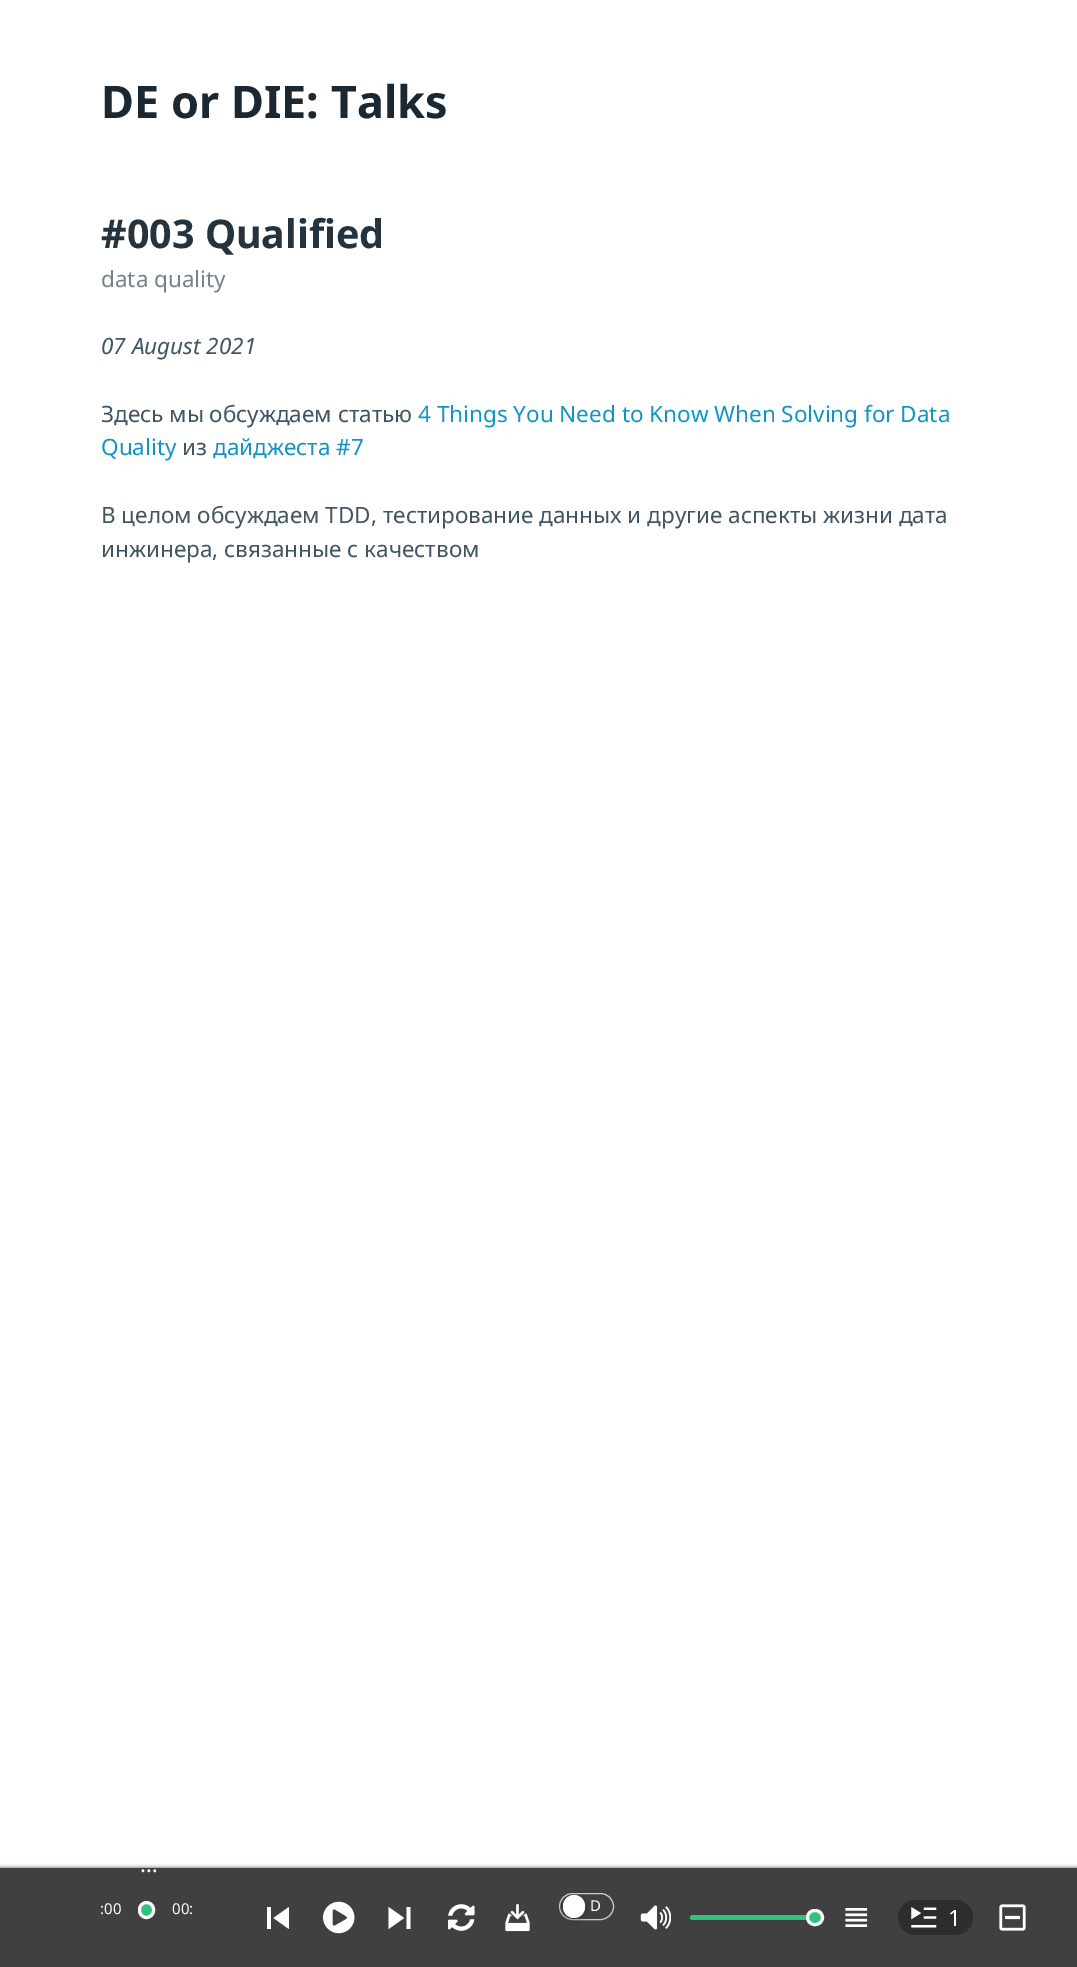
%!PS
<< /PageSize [1077 1967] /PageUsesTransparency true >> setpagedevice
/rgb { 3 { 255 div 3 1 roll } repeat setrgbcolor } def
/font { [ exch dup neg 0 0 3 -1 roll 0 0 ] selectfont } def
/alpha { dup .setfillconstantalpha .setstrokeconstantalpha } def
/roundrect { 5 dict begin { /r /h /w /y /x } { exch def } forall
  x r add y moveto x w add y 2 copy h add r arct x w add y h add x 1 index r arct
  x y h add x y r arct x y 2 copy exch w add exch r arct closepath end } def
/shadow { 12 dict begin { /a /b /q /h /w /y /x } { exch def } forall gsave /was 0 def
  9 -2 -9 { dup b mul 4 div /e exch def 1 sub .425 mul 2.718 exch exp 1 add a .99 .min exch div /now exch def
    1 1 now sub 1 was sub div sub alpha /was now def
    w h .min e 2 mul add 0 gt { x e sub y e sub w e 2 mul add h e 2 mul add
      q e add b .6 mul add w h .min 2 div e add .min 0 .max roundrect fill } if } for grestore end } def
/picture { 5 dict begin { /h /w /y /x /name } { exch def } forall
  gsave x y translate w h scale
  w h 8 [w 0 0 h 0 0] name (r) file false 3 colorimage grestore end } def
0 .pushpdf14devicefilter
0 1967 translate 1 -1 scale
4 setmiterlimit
255 255 255 rgb
0 0 1077 1967 rectfill
64 63 63 rgb
0 1868 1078 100 0 2 1 shadow
64 64 64 rgb
0 1868 1077 99 rectfill
49 194 124 rgb
139.5 1902.5 14 15 7 roundrect gsave fill grestore
255 255 255 rgb
3 setlinewidth
stroke
267 1907 moveto 271 1907 lineto 271 1929 lineto 267 1929 lineto closepath 273.5 1918 moveto 289 1929 lineto 289 1907 lineto closepath fill
(img/1.rgb) 323 1901 32 33 picture
388.5 1929 moveto 404 1918 lineto 388.5 1907 lineto closepath 406.5 1907 moveto 406.5 1929 lineto 410.5 1929 lineto 410.5 1907 lineto closepath fill
(img/2.rgb) 448 1904 27 27 picture
(img/3.rgb) 505 1904 25 28 picture
204 204 204 rgb
1 setlinewidth
559.5 1893.5 54 26 13 roundrect stroke
0 0 0 rgb
563 1898 22 22 11 3 0.26 shadow
255 255 255 rgb
563 1895 22 23 11 roundrect fill
(img/4.rgb) 640 1905 31 25 picture
49 194 124 rgb
690 1915 125 5 2.5 roundrect fill
807.5 1910.5 15 14 7 roundrect gsave fill grestore
255 255 255 rgb
3 setlinewidth
stroke
(img/5.rgb) 845 1908 23 19 picture
0.3 alpha
0 0 0 rgb
898 1900 75 35 17.5 roundrect fill
1 alpha
(img/6.rgb) 911 1907 26 21 picture
(img/7.rgb) 999 1904 27 27 picture
/NotoSans-Bold 45 font
27 40 50 rgb
101 118 moveto (DE or DIE: Talks) show
/NotoSans-Bold 39.5 font
36 51 62 rgb
101 248 moveto (#003 Qualified) show
/NotoSans-Regular 22.5 font
115 130 140 rgb
101 287 moveto (data quality) show
/NotoSans-Italic 22.5 font
65 84 98 rgb
101 354 moveto (07 August 2021) show
/NotoSans-Regular 22.5 font
101 422 moveto (Здесь мы обсуждаем статью) show
16 149 193 rgb
418 422 moveto (4 Things You Need to Know When Solving for Data) show
101 455 moveto (Quality) show
65 84 98 rgb
182 455 moveto (из) show
16 149 193 rgb
213 455 moveto (дайджеста #7) show
65 84 98 rgb
101 523 moveto (В целом обсуждаем TDD, тестирование данных и другие аспекты жизни дата) show
101 557 moveto (инжинера, связанные с качеством) show
255 255 255 rgb
140 1872 moveto (…) show
/NotoSans-Regular 15 font
[
  [(:00) 100 1914]
  [(00:) 172 1914]
  [(D) 590 1911]
] { aload pop moveto show } forall
/NotoSans-Regular 22.5 font
948 1926 moveto (1) show
.poppdf14devicefilter showpage
